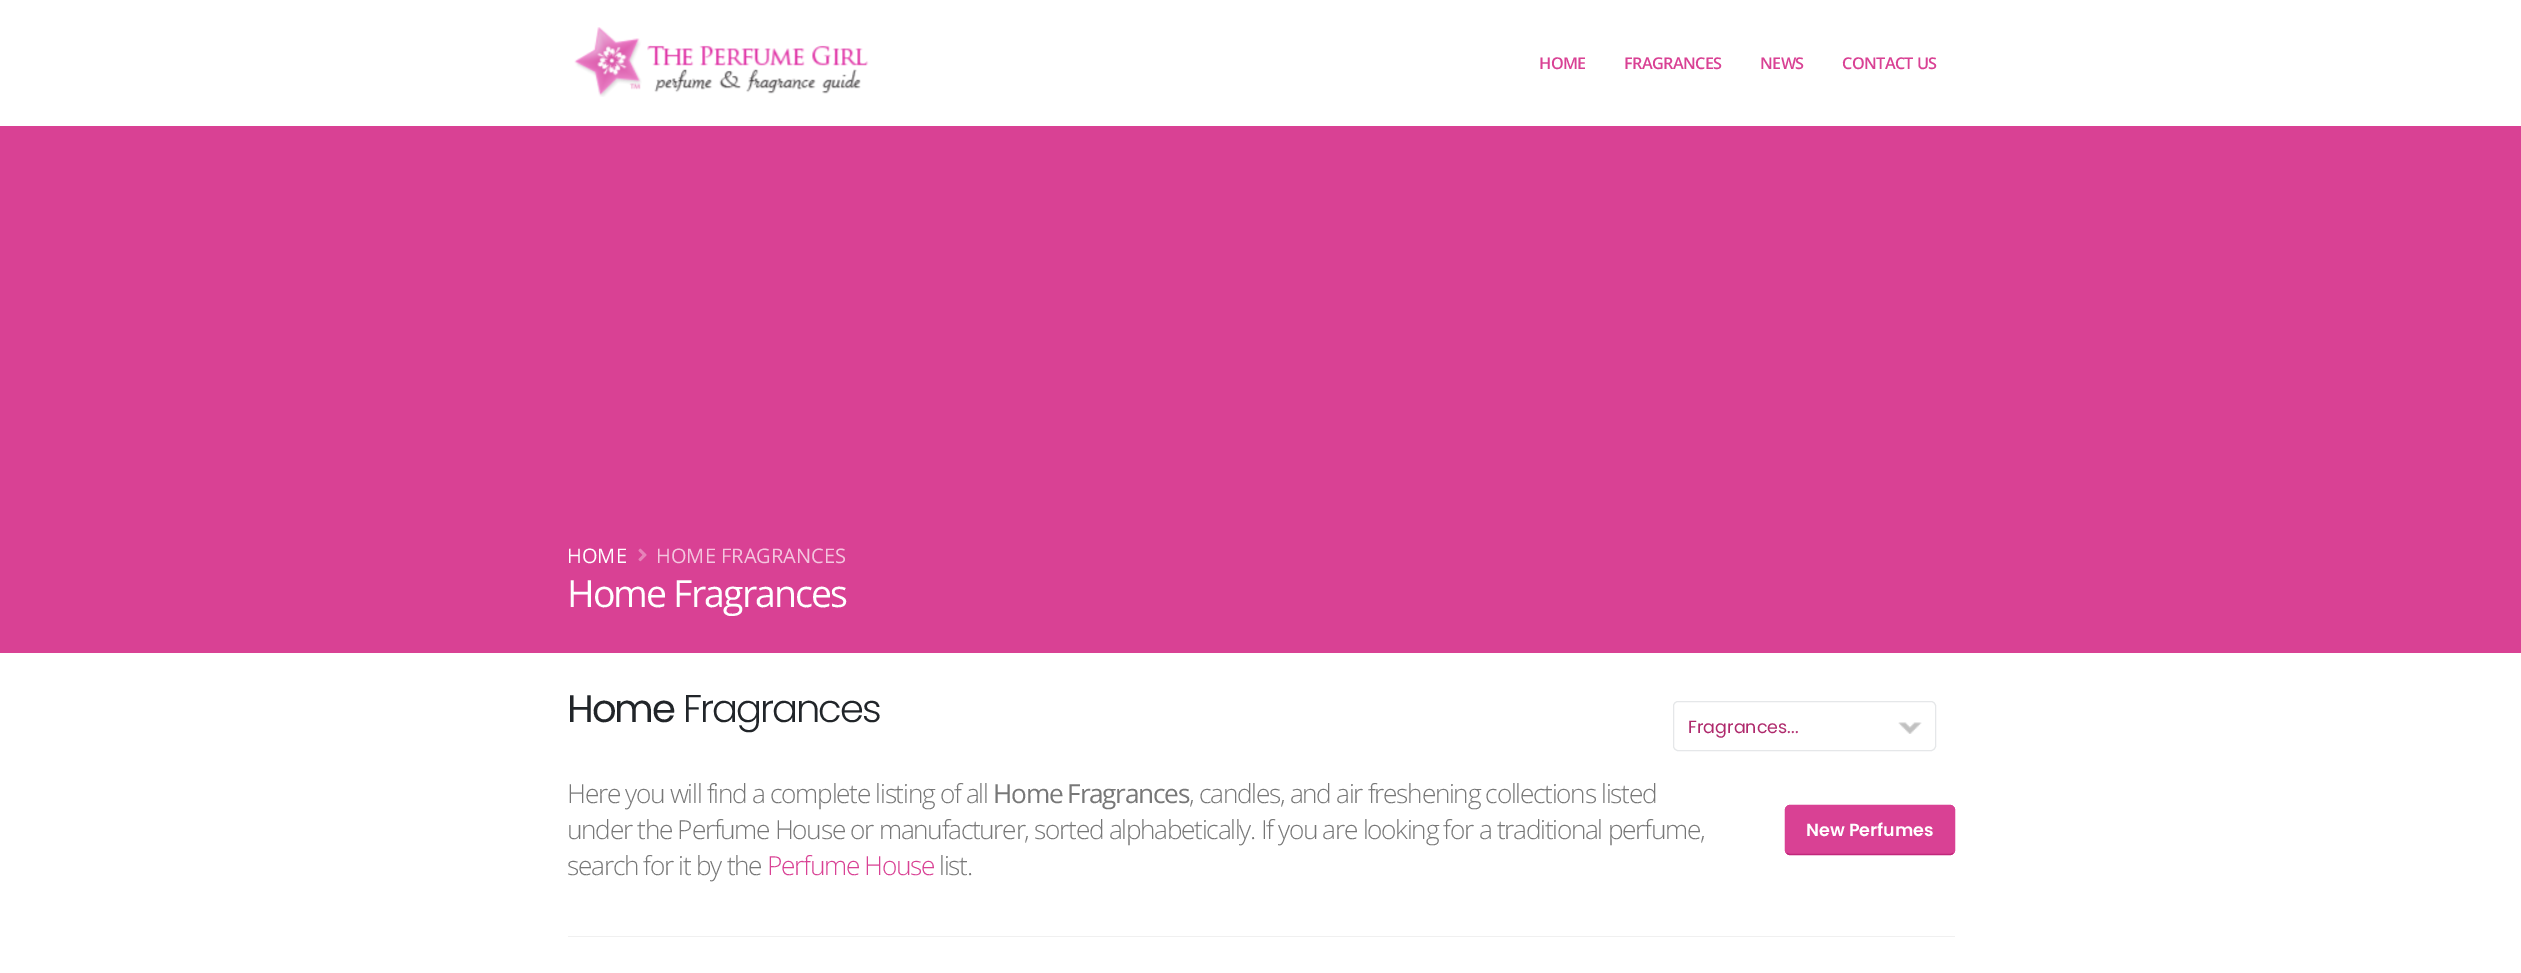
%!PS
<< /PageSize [2521 973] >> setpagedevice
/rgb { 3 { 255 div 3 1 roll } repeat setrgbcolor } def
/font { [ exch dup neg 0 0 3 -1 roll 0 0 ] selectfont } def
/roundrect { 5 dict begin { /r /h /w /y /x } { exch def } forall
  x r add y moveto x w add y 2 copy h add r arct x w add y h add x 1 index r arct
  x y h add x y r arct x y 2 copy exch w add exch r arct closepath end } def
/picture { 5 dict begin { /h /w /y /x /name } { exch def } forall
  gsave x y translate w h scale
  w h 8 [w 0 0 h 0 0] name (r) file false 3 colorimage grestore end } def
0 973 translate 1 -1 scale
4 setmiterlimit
255 255 255 rgb
0 0 2521 973 rectfill
(img/1.rgb) 574 27 295 70 picture
217 65 148 rgb
0 126 2521 527 rectfill
(img/2.rgb) 638 548 9 14 picture
(img/3.rgb) 1898 722 24 12 picture
229 231 233 rgb
1673.5 701.5 262 49 4.5 roundrect stroke
217 65 148 rgb
1785 805 170 50 5 roundrect fill
193 39 123 rgb
1.2 setlinewidth
1953 853 moveto 1952.5 854 1951 854.5 1950 854.5 curveto 1790 854.5 lineto 1789 854.5 1787.5 854 1787 853 curveto stroke
217 65 148 rgb
1787 853 moveto 1786 852.5 1785.5 851 1785.5 850 curveto 1785.5 810 lineto 1785.5 809 1786 807.5 1787 807 curveto 1787.5 806 1789 805.5 1790 805.5 curveto 1950 805.5 lineto 1951 805.5 1952.5 806 1953 807 curveto 1954 807.5 1954.5 809 1954.5 810 curveto 1954.5 850 lineto 1954.5 851 1954 852.5 1953 853 curveto stroke
240 240 240 rgb
568 936 1387 1 rectfill
/OpenSans-SemiBold 16.25 font
217 65 148 rgb
1539 69 moveto -0.6 0 (HOME) ashow
1624 69 moveto -0.6 0 (FRAGRANCES) ashow
1760 69 moveto -0.6 0 (NEWS) ashow
1842 69 moveto -0.6 0 (CONTACT US) ashow
/OpenSans-Regular 20.1 font
255 255 255 rgb
567 563 moveto (HOME) show
244 198 223 rgb
656 563 moveto (HOME FRAGRANCES) show
/OpenSans-Regular 37.5 font
255 255 255 rgb
567 607 moveto -1.9 0 (Home Fragrances) ashow
/Poppins-Regular 38.5 font
33 37 41 rgb
567 722 moveto -2 0 (Home) ashow
/Poppins-Light 38.5 font
683 722 moveto -2 0 (Fragrances) ashow
/Poppins-Regular 17.5 font
175 41 108 rgb
1688 733 moveto (Fragrances...) show
/OpenSans-Light 26.25 font
119 119 119 rgb
567 803 moveto -1.31 0 (Here you will find a complete listing of all) ashow
/OpenSans-Regular 26.25 font
993 803 moveto -1.31 0 (Home Fragrances) ashow
/OpenSans-Light 26.25 font
1189 803 moveto -1.31 0 (, candles, and air freshening collections listed) ashow
567 839 moveto -1.31 0 (under the Perfume House or manufacturer, sorted alphabetically. If you are looking for a traditional perfume,) ashow
567 875 moveto -1.31 0 (search for it by the) ashow
217 65 148 rgb
767 875 moveto -1.31 0 (Perfume House) ashow
119 119 119 rgb
939 875 moveto -1.31 0 (list.) ashow
/Poppins-SemiBold 17.5 font
255 255 255 rgb
1806 836 moveto (New Perfumes) show
showpage
